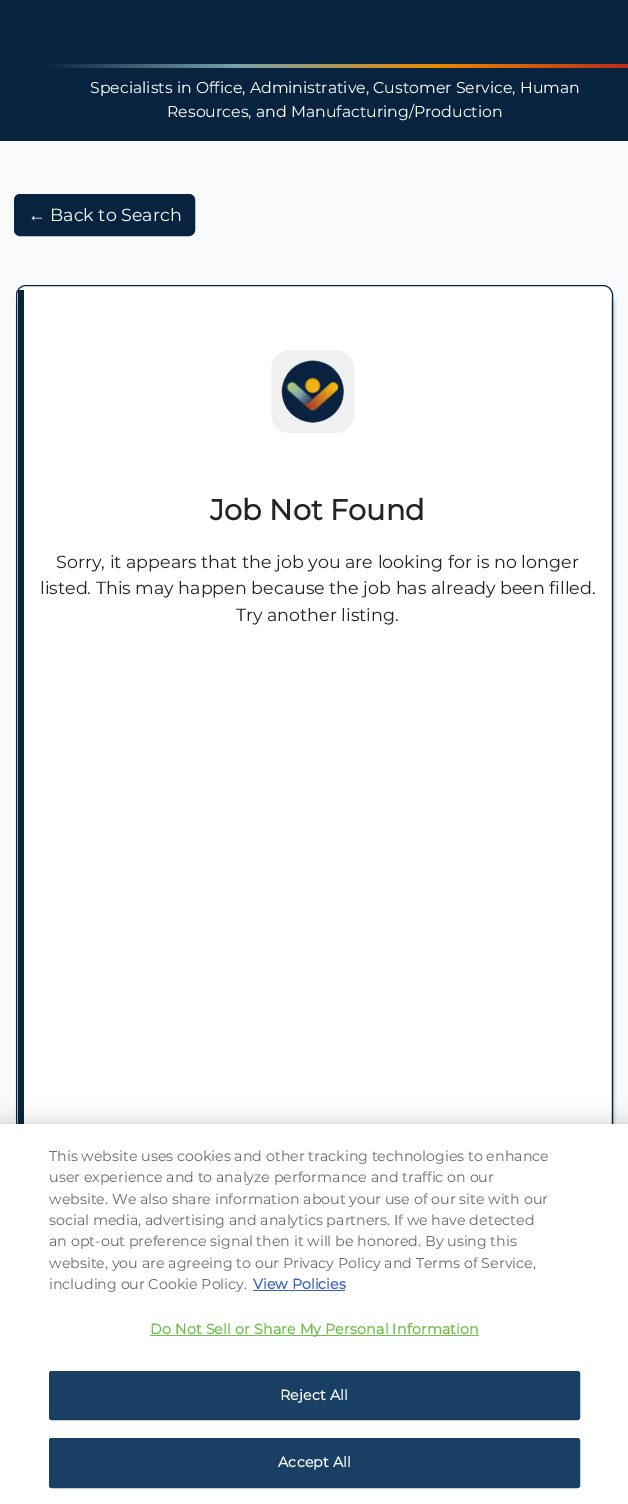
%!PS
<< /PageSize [628 1504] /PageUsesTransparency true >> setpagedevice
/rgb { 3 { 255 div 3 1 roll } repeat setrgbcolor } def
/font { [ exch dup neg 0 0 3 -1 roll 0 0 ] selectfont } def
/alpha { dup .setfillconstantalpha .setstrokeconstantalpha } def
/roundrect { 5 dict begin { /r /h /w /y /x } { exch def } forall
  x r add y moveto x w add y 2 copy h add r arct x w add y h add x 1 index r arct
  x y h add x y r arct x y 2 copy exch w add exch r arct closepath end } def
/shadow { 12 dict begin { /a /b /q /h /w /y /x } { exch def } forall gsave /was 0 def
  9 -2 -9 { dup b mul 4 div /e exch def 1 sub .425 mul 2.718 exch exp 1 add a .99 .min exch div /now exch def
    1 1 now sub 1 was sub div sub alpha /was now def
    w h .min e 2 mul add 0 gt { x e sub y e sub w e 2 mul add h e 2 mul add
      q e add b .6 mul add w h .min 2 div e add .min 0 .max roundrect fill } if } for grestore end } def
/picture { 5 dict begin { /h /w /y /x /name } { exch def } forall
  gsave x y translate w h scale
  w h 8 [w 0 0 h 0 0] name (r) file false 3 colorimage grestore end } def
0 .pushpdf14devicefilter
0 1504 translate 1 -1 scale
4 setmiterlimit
249 250 251 rgb
0 0 628 1504 rectfill
8 35 64 rgb
0 0 628 141 rectfill
gsave 48 64 moveto 628 64 lineto 628 68 lineto 48 68 lineto closepath clip newpath
<< /ShadingType 2 /ColorSpace /DeviceRGB /Coords [0 66 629 66] /Extend [true true] /Function << /FunctionType 3 /Domain [0 1] /Functions [<< /FunctionType 2 /Domain [0 1] /C0 [0.031 0.137 0.251] /C1 [0.031 0.137 0.251] /N 1 >> << /FunctionType 2 /Domain [0 1] /C0 [0.031 0.137 0.251] /C1 [0.478 0.639 0.667] /N 1 >> << /FunctionType 2 /Domain [0 1] /C0 [0.478 0.639 0.667] /C1 [0.91 0.549 0.012] /N 1 >> << /FunctionType 2 /Domain [0 1] /C0 [0.91 0.549 0.012] /C1 [0.733 0.173 0.106] /N 1 >>] /Bounds [0.07 0.38 0.69] /Encode [0 1 0 1 0 1 0 1] >> >> shfill grestore
14.5 194.5 180 41 5.5 roundrect gsave fill grestore
stroke
0 0 0 rgb
18 294 596 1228 10 2.5 0.2 shadow
255 255 255 rgb
27 286 moveto 602 286 lineto 607 286 611 290 611 296 curveto 611 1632 lineto 611 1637 607 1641 602 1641 curveto 27 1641 lineto 25 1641 24 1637 24 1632 curveto 24 296 lineto 24 290 25 286 27 286 curveto closepath fill
8 35 64 rgb
16.5 285.5 596 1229 9.5 roundrect stroke
18 290 6 834 rectfill
(img/1.rgb) 271 350 84 83 picture
0 0 0 rgb
0 1124 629 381 0 11 0.2 shadow
[
  [0 1124 628 380 255 255 255]
  [253 1290 92 1 56 96 190]
  [150 1335 329 1 108 192 74]
] { aload pop rgb rectfill } forall
25 63 101 rgb
49.5 1371.5 530 48 2 roundrect gsave fill grestore
stroke
49.5 1438.5 530 49 2 roundrect gsave fill grestore
stroke
/Montserrat-Thin 15.75 font
255 255 255 rgb
90 93 moveto (Specialists in Office, Administrative, Customer Service, Human) show
167 117 moveto (Resources, and Manufacturing/Production) show
/LiberationSerif-Regular 17.5 font
28 221 moveto (←) show
/Montserrat-Thin 17.5 font
50 221 moveto (Back to Search) show
/Montserrat-Bold 28.75 font
33 37 41 rgb
210 520 moveto (Job Not Found) show
/Montserrat-Thin 17.5 font
[
  [(Sorry, it appears that the job you are looking for is no longer) 56 568]
  [(listed. This may happen because the job has already been filled.) 40 594]
  [(Try another listing.) 236 621]
] { aload pop moveto show } forall
/Montserrat-Thin 14.25 font
105 105 105 rgb
[
  [(This website uses cookies and other tracking technologies to enhance) 49 1161]
  [(user experience and to analyze performance and traffic on our) 49 1182]
  [(website. We also share information about your use of our site with our) 49 1204]
  [(social media, advertising and analytics partners. If we have detected) 49 1225]
  [(an opt-out preference signal then it will be honored. By using this) 49 1246]
  [(website, you are agreeing to our Privacy Policy and Terms of Service,) 49 1268]
  [(including our Cookie Policy.) 49 1289]
] { aload pop moveto show } forall
/Montserrat-Bold 14.25 font
56 96 190 rgb
253 1289 moveto (View Policies) show
108 192 74 rgb
150 1334 moveto 0.15 0 (Do Not Sell or Share My Personal Information) ashow
255 255 255 rgb
280 1400 moveto 0.15 0 (Reject All) ashow
278 1467 moveto 0.15 0 (Accept All) ashow
.poppdf14devicefilter showpage
